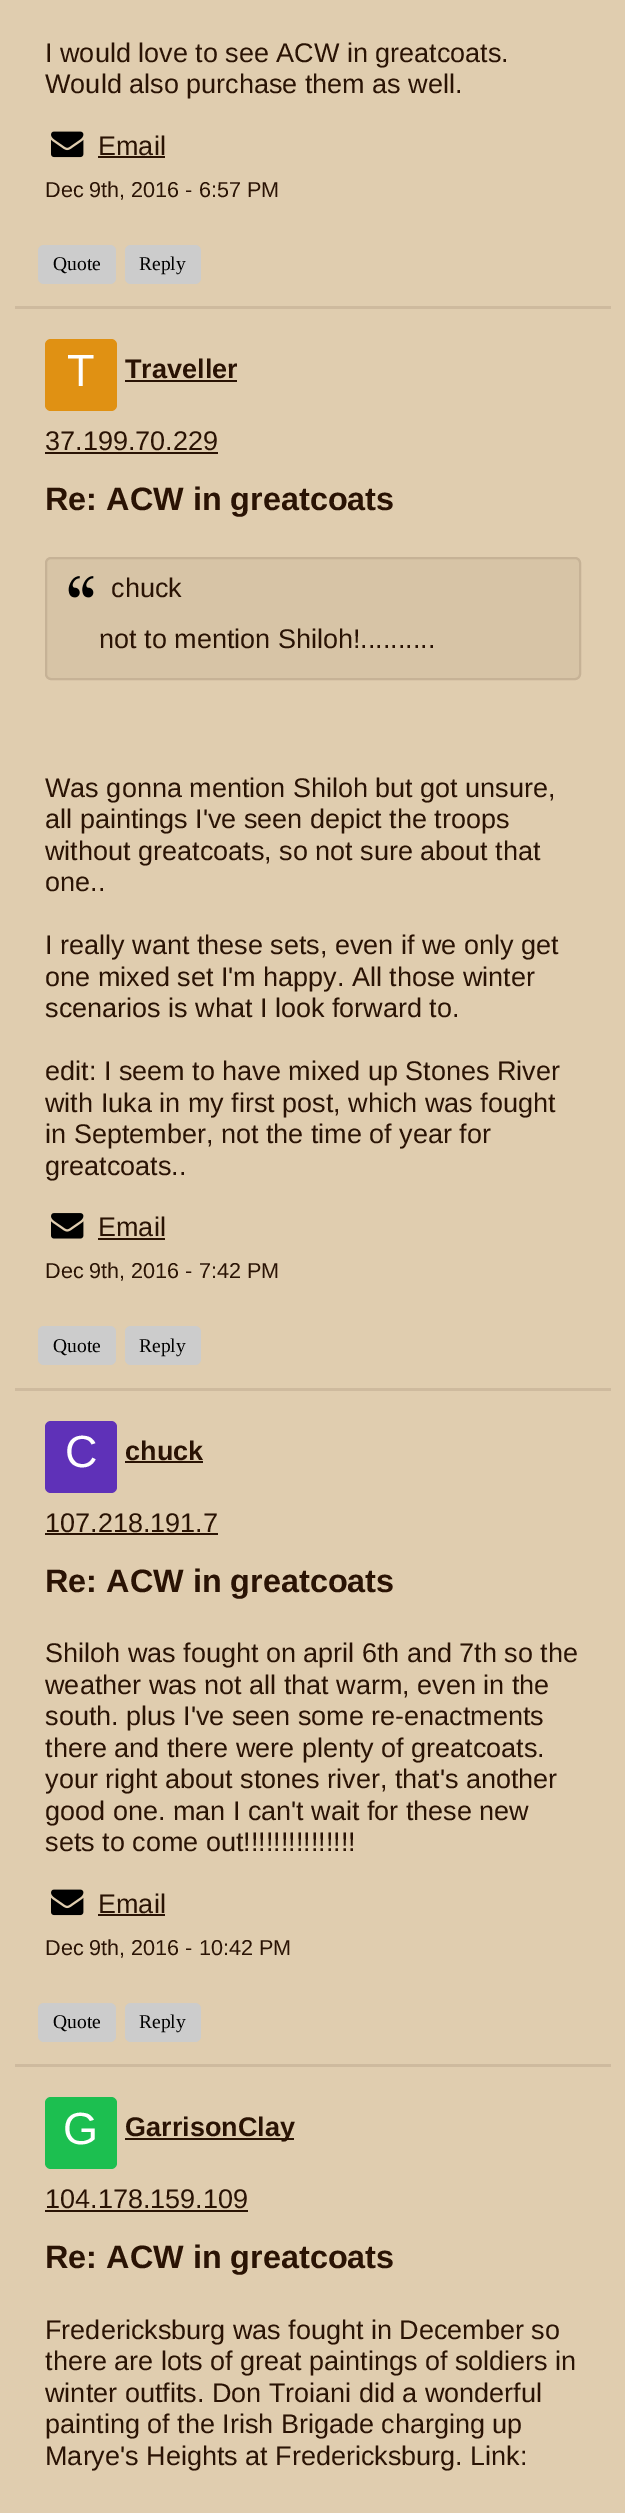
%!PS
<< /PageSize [625 2513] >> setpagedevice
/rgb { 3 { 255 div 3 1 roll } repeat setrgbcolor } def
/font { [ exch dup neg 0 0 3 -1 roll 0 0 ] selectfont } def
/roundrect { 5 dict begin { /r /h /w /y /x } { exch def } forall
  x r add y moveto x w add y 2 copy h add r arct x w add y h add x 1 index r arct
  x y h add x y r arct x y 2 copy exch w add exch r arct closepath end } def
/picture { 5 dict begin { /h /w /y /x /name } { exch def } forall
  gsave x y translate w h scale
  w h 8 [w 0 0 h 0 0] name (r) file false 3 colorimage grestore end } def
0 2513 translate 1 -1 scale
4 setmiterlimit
224 205 175 rgb
0 0 625 2513 rectfill
206 186 158 rgb
15 306 596 3 rectfill
(img/1.rgb) 51 131 33 27 picture
42 19 4 rgb
98 156 67 2 rectfill
204 204 204 rgb
38 245 78 39 6 roundrect fill
125 245 76 39 6 roundrect fill
206 186 158 rgb
15 1388 596 3 rectfill
224 145 19 rgb
45 339 72 72 6 roundrect fill
42 19 4 rgb
125 380 112 2 rectfill
45 452 173 2 rectfill
204 204 204 rgb
38 1326 78 39 6 roundrect fill
125 1326 76 39 6 roundrect fill
215 196 166 rgb
46 558 534 121 5 roundrect gsave fill grestore
198 178 150 rgb
2 setlinewidth
stroke
(img/2.rgb) 68 576 26 22 picture
(img/3.rgb) 51 1213 33 26 picture
42 19 4 rgb
98 1238 67 2 rectfill
206 186 158 rgb
15 2064 596 3 rectfill
95 49 184 rgb
45 1421 72 72 6 roundrect fill
42 19 4 rgb
125 1461 78 2 rectfill
45 1533 173 2 rectfill
204 204 204 rgb
38 2003 78 39 6 roundrect fill
125 2003 76 39 6 roundrect fill
(img/1.rgb) 51 1889 33 27 picture
42 19 4 rgb
98 1914 67 2 rectfill
28 191 80 rgb
45 2097 72 72 6 roundrect fill
42 19 4 rgb
125 2138 169 2 rectfill
45 2210 203 2 rectfill
/LiberationSans-Regular 27 font
[
  [(I would love to see ACW in greatcoats.) 45 62]
  [(Would also purchase them as well.) 45 93]
  [(Email) 98 155]
] { aload pop moveto show } forall
/LiberationSans-Regular 21.6 font
45 197 moveto (Dec 9th, 2016 - 6:57 PM) show
/LiberationSerif-Regular 19.5 font
0 0 0 rgb
53 270 moveto (Quote) show
139 270 moveto (Reply) show
/LiberationSans-Regular 45 font
255 255 255 rgb
67 386 moveto (T) show
gsave
125 354 255 32 rectclip
/LiberationSans-Bold 27 font
42 19 4 rgb
125 378 moveto (Traveller) show
grestore
/LiberationSans-Regular 27 font
42 19 4 rgb
45 450 moveto (37.199.70.229) show
/LiberationSans-Bold 32.4 font
45 510 moveto (Re: ACW in greatcoats) show
/LiberationSerif-Regular 19.5 font
0 0 0 rgb
53 1352 moveto (Quote) show
139 1352 moveto (Reply) show
/LiberationSans-Regular 27 font
42 19 4 rgb
[
  [(chuck) 111 597]
  [(not to mention Shiloh!..........) 99 648]
  [(Was gonna mention Shiloh but got unsure,) 45 797]
  [(all paintings I've seen depict the troops) 45 828]
  [(without greatcoats, so not sure about that) 45 860]
  [(one..) 45 891]
  [(I really want these sets, even if we only get) 45 954]
  [(one mixed set I'm happy. All those winter) 45 986]
  [(scenarios is what I look forward to.) 45 1017]
  [(edit: I seem to have mixed up Stones River) 45 1080]
  [(with Iuka in my first post, which was fought) 45 1112]
  [(in September, not the time of year for) 45 1143]
  [(greatcoats..) 45 1175]
  [(Email) 98 1236]
] { aload pop moveto show } forall
/LiberationSans-Regular 21.6 font
45 1278 moveto (Dec 9th, 2016 - 7:42 PM) show
/LiberationSans-Regular 45 font
255 255 255 rgb
65 1467 moveto (C) show
/LiberationSans-Bold 27 font
42 19 4 rgb
125 1460 moveto (chuck) show
/LiberationSans-Regular 27 font
45 1532 moveto (107.218.191.7) show
/LiberationSans-Bold 32.4 font
45 1592 moveto (Re: ACW in greatcoats) show
/LiberationSerif-Regular 19.5 font
0 0 0 rgb
53 2028 moveto (Quote) show
139 2028 moveto (Reply) show
/LiberationSans-Regular 27 font
42 19 4 rgb
[
  [(Shiloh was fought on april 6th and 7th so the) 45 1662]
  [(weather was not all that warm, even in the) 45 1694]
  [(south. plus I've seen some re-enactments) 45 1725]
  [(there and there were plenty of greatcoats.) 45 1757]
  [(your right about stones river, that's another) 45 1788]
  [(good one. man I can't wait for these new) 45 1820]
  [(sets to come out!!!!!!!!!!!!!!!) 45 1851]
  [(Email) 98 1913]
] { aload pop moveto show } forall
/LiberationSans-Regular 21.6 font
45 1955 moveto (Dec 9th, 2016 - 10:42 PM) show
/LiberationSans-Regular 45 font
255 255 255 rgb
63 2144 moveto (G) show
/LiberationSans-Bold 27 font
42 19 4 rgb
125 2136 moveto (GarrisonClay) show
/LiberationSans-Regular 27 font
45 2208 moveto (104.178.159.109) show
/LiberationSans-Bold 32.4 font
45 2268 moveto (Re: ACW in greatcoats) show
/LiberationSans-Regular 27 font
[
  [(Fredericksburg was fought in December so) 45 2339]
  [(there are lots of great paintings of soldiers in) 45 2370]
  [(winter outfits. Don Troiani did a wonderful) 45 2402]
  [(painting of the Irish Brigade charging up) 45 2433]
  [(Marye's Heights at Fredericksburg. Link:) 45 2465]
] { aload pop moveto show } forall
showpage
